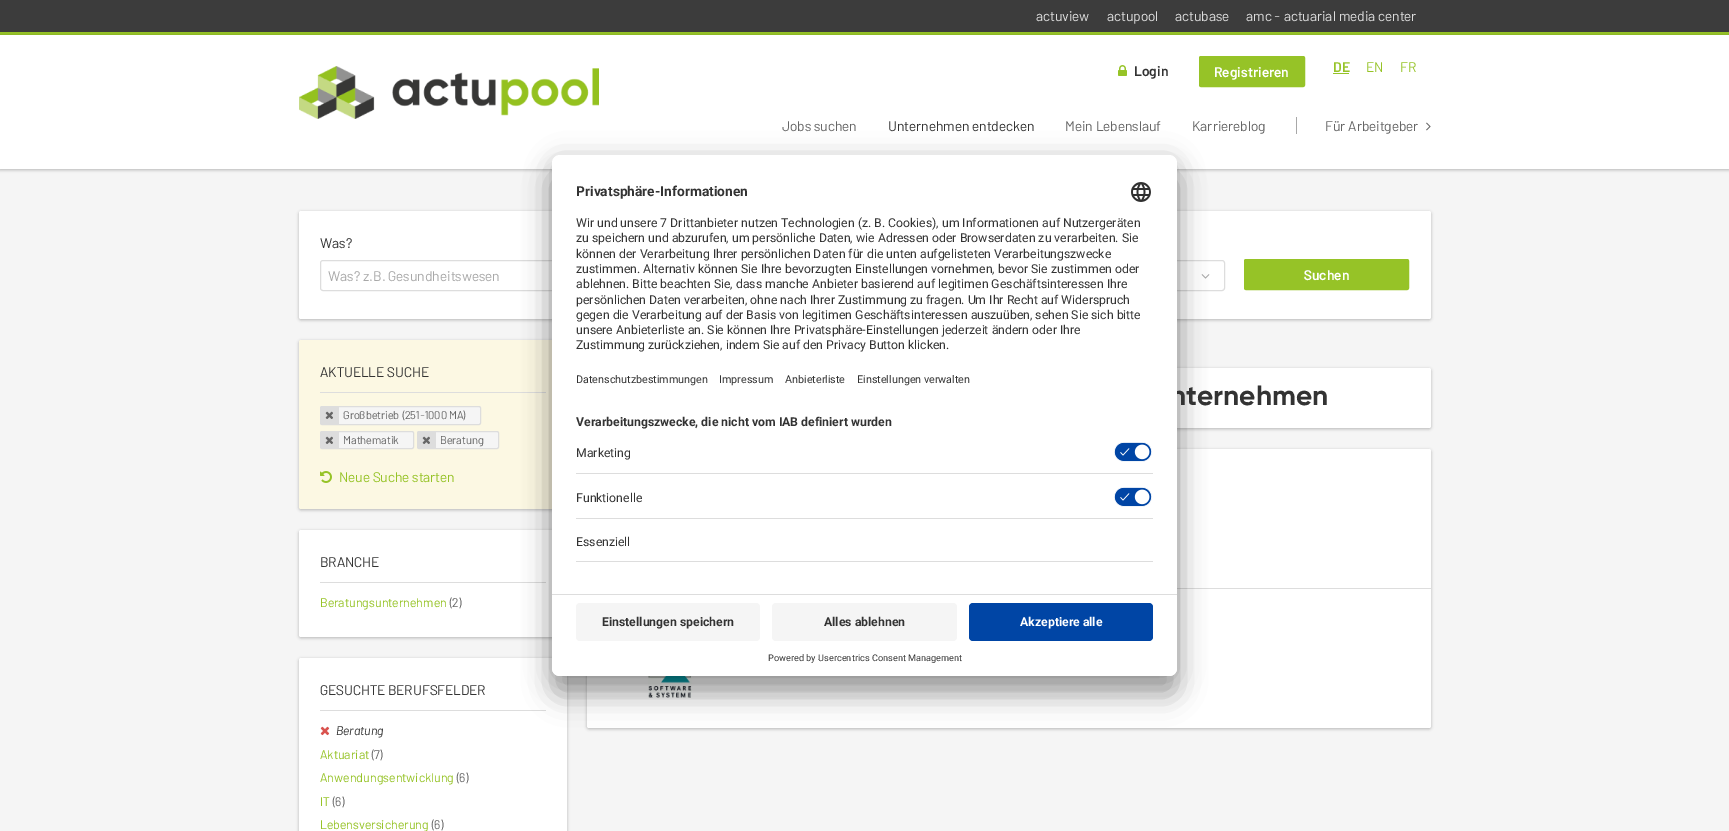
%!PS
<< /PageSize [1729 831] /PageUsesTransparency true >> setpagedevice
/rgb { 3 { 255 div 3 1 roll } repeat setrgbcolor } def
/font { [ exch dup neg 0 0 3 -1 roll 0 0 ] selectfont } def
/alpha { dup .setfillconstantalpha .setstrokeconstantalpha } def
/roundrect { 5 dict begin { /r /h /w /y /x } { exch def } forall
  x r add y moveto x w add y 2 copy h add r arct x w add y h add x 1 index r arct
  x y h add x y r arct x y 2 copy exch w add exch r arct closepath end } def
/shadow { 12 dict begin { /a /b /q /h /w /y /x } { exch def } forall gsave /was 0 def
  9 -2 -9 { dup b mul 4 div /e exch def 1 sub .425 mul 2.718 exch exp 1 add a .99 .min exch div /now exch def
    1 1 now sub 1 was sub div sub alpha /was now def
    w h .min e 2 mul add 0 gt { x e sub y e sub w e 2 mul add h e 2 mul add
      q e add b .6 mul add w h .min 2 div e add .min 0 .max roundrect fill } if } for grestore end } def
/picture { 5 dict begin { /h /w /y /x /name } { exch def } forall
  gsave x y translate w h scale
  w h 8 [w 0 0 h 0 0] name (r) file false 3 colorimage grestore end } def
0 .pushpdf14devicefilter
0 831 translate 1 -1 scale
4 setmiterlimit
245 245 245 rgb
0 0 1729 831 rectfill
60 60 60 rgb
0 0 1729 32 rectfill
150 195 39 rgb
0 32 1729 3 rectfill
0 0 0 rgb
0 36 1729 134 0 1.5 0.25 shadow
255 255 255 rgb
0 35 1729 134 rectfill
(img/1.rgb) 299 66 300 53 picture
(img/2.rgb) 1118 65 9 11 picture
150 195 39 rgb
1199.5 56.5 105 30 1.5 roundrect gsave fill grestore
stroke
1333 73 16 1 rectfill
168 168 168 rgb
1296 117 1 17 rectfill
(img/3.rgb) 1426 122 5 9 picture
0 0 0 rgb
299 212 1132 108 2 1.5 0.25 shadow
255 255 255 rgb
299 211 1132 108 2 roundrect fill
221 221 221 rgb
320.5 260.5 441 30 2.5 roundrect stroke
1105.5 260.5 119 30 2.5 roundrect stroke
(img/4.rgb) 1201 274 9 5 picture
150 195 39 rgb
1244.5 259.5 164 30 1.5 roundrect gsave fill grestore
stroke
0 0 0 rgb
299 341 268 169 2 1.5 0.25 shadow
252 248 227 rgb
299 340 268 169 2 roundrect fill
221 221 221 rgb
320 392 226 1 rectfill
245 245 245 rgb
320.5 406.5 160 18 1.5 roundrect gsave fill grestore
221 221 221 rgb
stroke
321 407 18 17 rectfill
(img/5.rgb) 325 411 8 8 picture
245 245 245 rgb
320.5 431.5 93 17 1.5 roundrect gsave fill grestore
221 221 221 rgb
stroke
321 432 18 16 rectfill
(img/5.rgb) 325 436 8 8 picture
245 245 245 rgb
417.5 431.5 81 17 1.5 roundrect gsave fill grestore
221 221 221 rgb
stroke
418 432 18 16 rectfill
(img/5.rgb) 422 436 8 8 picture
(img/6.rgb) 320 471 12 12 picture
0 0 0 rgb
299 531 268 107 2 1.5 0.25 shadow
255 255 255 rgb
299 530 268 107 2 roundrect fill
221 221 221 rgb
320 582 226 1 rectfill
0 0 0 rgb
299 659 268 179 2 1.5 0.25 shadow
255 255 255 rgb
299 658 268 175 2 roundrect fill
221 221 221 rgb
320 710 226 1 rectfill
(img/7.rgb) 320 726 10 10 picture
0 0 0 rgb
587 369 844 60 2 1.5 0.25 shadow
255 255 255 rgb
587 368 844 60 2 roundrect fill
0 0 0 rgb
587 450 844 279 2 1.5 0.25 shadow
255 255 255 rgb
587 449 844 279 2 roundrect fill
221 221 221 rgb
1177 588 254 1 rectfill
(img/8.rgb) 648 676 44 22 picture
0 0 0 rgb
552 175 625 521 8 14 0.3 shadow
552 160 625 521 8 13 0.22 shadow
/Barlow-Regular 14 font
221 221 221 rgb
[
  [(actuview) 1036 21]
  [(actupool) 1107 21]
  [(actubase) 1175 21]
  [(amc - actuarial media center) 1246 21]
] { aload pop moveto show } forall
/Barlow-SemiBold 14 font
51 51 51 rgb
1134 76 moveto (Login) show
255 255 255 rgb
1214 77 moveto (Registrieren) show
150 195 39 rgb
1333 72 moveto (DE) show
/Barlow-Regular 14 font
1366 72 moveto (EN) show
1400 72 moveto (FR) show
102 102 102 rgb
782 131 moveto (Jobs suchen) show
51 51 51 rgb
888 131 moveto (Unternehmen entdecken) show
102 102 102 rgb
[
  [(Mein Lebenslauf) 1065 131]
  [(Karriereblog) 1192 131]
  [(Für Arbeitgeber) 1325 131]
] { aload pop moveto show } forall
51 51 51 rgb
320 248 moveto (Was?) show
168 168 168 rgb
328 281 moveto (Was? z.B. Gesundheitswesen) show
/Barlow-SemiBold 14 font
255 255 255 rgb
1304 280 moveto (Suchen) show
/Barlow-Regular 14 font
51 51 51 rgb
320 377 moveto (AKTUELLE SUCHE) show
/Barlow-Regular 11.25 font
102 102 102 rgb
[
  [(Großbetrieb \(251-1000 MA\)) 343 419]
  [(Mathematik) 343 444]
  [(Beratung) 440 444]
] { aload pop moveto show } forall
/Barlow-Regular 14 font
150 195 39 rgb
339 482 moveto (Neue Suche starten) show
51 51 51 rgb
320 567 moveto (BRANCHE) show
/Barlow-Regular 12.6 font
150 195 39 rgb
320 607 moveto (Beratungsunternehmen) show
102 102 102 rgb
449 607 moveto (\(2\)) show
/Barlow-Regular 14 font
51 51 51 rgb
320 695 moveto (GESUCHTE BERUFSFELDER) show
/Barlow-Italic 12.6 font
336 735 moveto (Beratung) show
/Barlow-Regular 12.6 font
150 195 39 rgb
320 759 moveto (Aktuariat) show
102 102 102 rgb
371 759 moveto (\(7\)) show
150 195 39 rgb
320 782 moveto (Anwendungsentwicklung) show
102 102 102 rgb
456 782 moveto (\(6\)) show
150 195 39 rgb
320 806 moveto (IT) show
102 102 102 rgb
332 806 moveto (\(6\)) show
150 195 39 rgb
320 829 moveto (Lebensversicherung) show
102 102 102 rgb
431 829 moveto (\(6\)) show
/Gilroy-Regular 28 font
51 51 51 rgb
1170 405 moveto (nternehmen) show
255 255 255 rgb
552 155 625 521 8 roundrect fill
/Roboto-Bold 13.75 font
51 51 51 rgb
576 196 moveto (Privatsphäre-Informationen) show
(img/9.rgb) 1131 182 20 20 picture
/Roboto-Regular 12.25 font
[
  [(Wir und unsere 7 Drittanbieter nutzen Technologien \(z. B. Cookies\), um Informationen auf Nutzergeräten) 576 227]
  [(zu speichern und abzurufen, um persönliche Daten, wie Adressen oder Browserdaten zu verarbeiten. Sie) 576 242]
  [(können der Verarbeitung Ihrer persönlichen Daten für die unten aufgelisteten Verarbeitungszwecke) 576 258]
  [(zustimmen. Alternativ können Sie Ihre bevorzugten Einstellungen vornehmen, bevor Sie zustimmen oder) 576 273]
  [(ablehnen. Bitte beachten Sie, dass manche Anbieter basierend auf legitimen Geschäftsinteressen Ihre) 576 288]
  [(persönlichen Daten verarbeiten, ohne nach Ihrer Zustimmung zu fragen. Um Ihr Recht auf Widerspruch) 576 304]
  [(gegen die Verarbeitung auf der Basis von legitimen Geschäftsinteressen auszuüben, sehen Sie sich bitte) 576 319]
  [(unsere Anbieterliste an. Sie können Ihre Privatsphäre-Einstellungen jederzeit ändern oder Ihre) 576 334]
  [(Zustimmung zurückziehen, indem Sie auf den Privacy Button klicken.) 576 349]
] { aload pop moveto show } forall
/Roboto-Regular 10.75 font
[
  [(Datenschutzbestimmungen) 576 383]
  [(Impressum) 719 383]
  [(Anbieterliste) 785 383]
  [(Einstellungen verwalten) 857 383]
] { aload pop moveto show } forall
/Roboto-Bold 12.25 font
576 426 moveto (Verarbeitungszwecke, die nicht vom IAB definiert wurden) show
221 221 221 rgb
576 473 577 1 rectfill
/Roboto-Regular 12.25 font
51 51 51 rgb
576 457 moveto (Marketing) show
(img/10.rgb) 1114 442 38 20 picture
221 221 221 rgb
576 518 577 1 rectfill
51 51 51 rgb
576 502 moveto (Funktionelle) show
(img/10.rgb) 1114 487 38 20 picture
221 221 221 rgb
576 561 577 1 rectfill
51 51 51 rgb
576 546 moveto (Essenziell) show
255 255 255 rgb
552 594 moveto 1177 594 lineto 1177 668 lineto 1177 672.5 1173.5 676 1169 676 curveto 560 676 lineto 555.5 676 552 672.5 552 668 curveto closepath fill
221 221 221 rgb
552 594 625 1 rectfill
245 245 245 rgb
576 603 184 38 4 roundrect fill
/Roboto-Bold 12.25 font
51 51 51 rgb
602 626 moveto (Einstellungen speichern) show
245 245 245 rgb
772 603 185 38 4 roundrect fill
51 51 51 rgb
824 626 moveto (Alles ablehnen) show
0 69 165 rgb
969 603 184 38 4 roundrect fill
255 255 255 rgb
1020 626 moveto (Akzeptiere alle) show
/Roboto-Regular 9.2 font
51 51 51 rgb
768 661 moveto (Powered by Usercentrics Consent Management) show
.poppdf14devicefilter showpage
